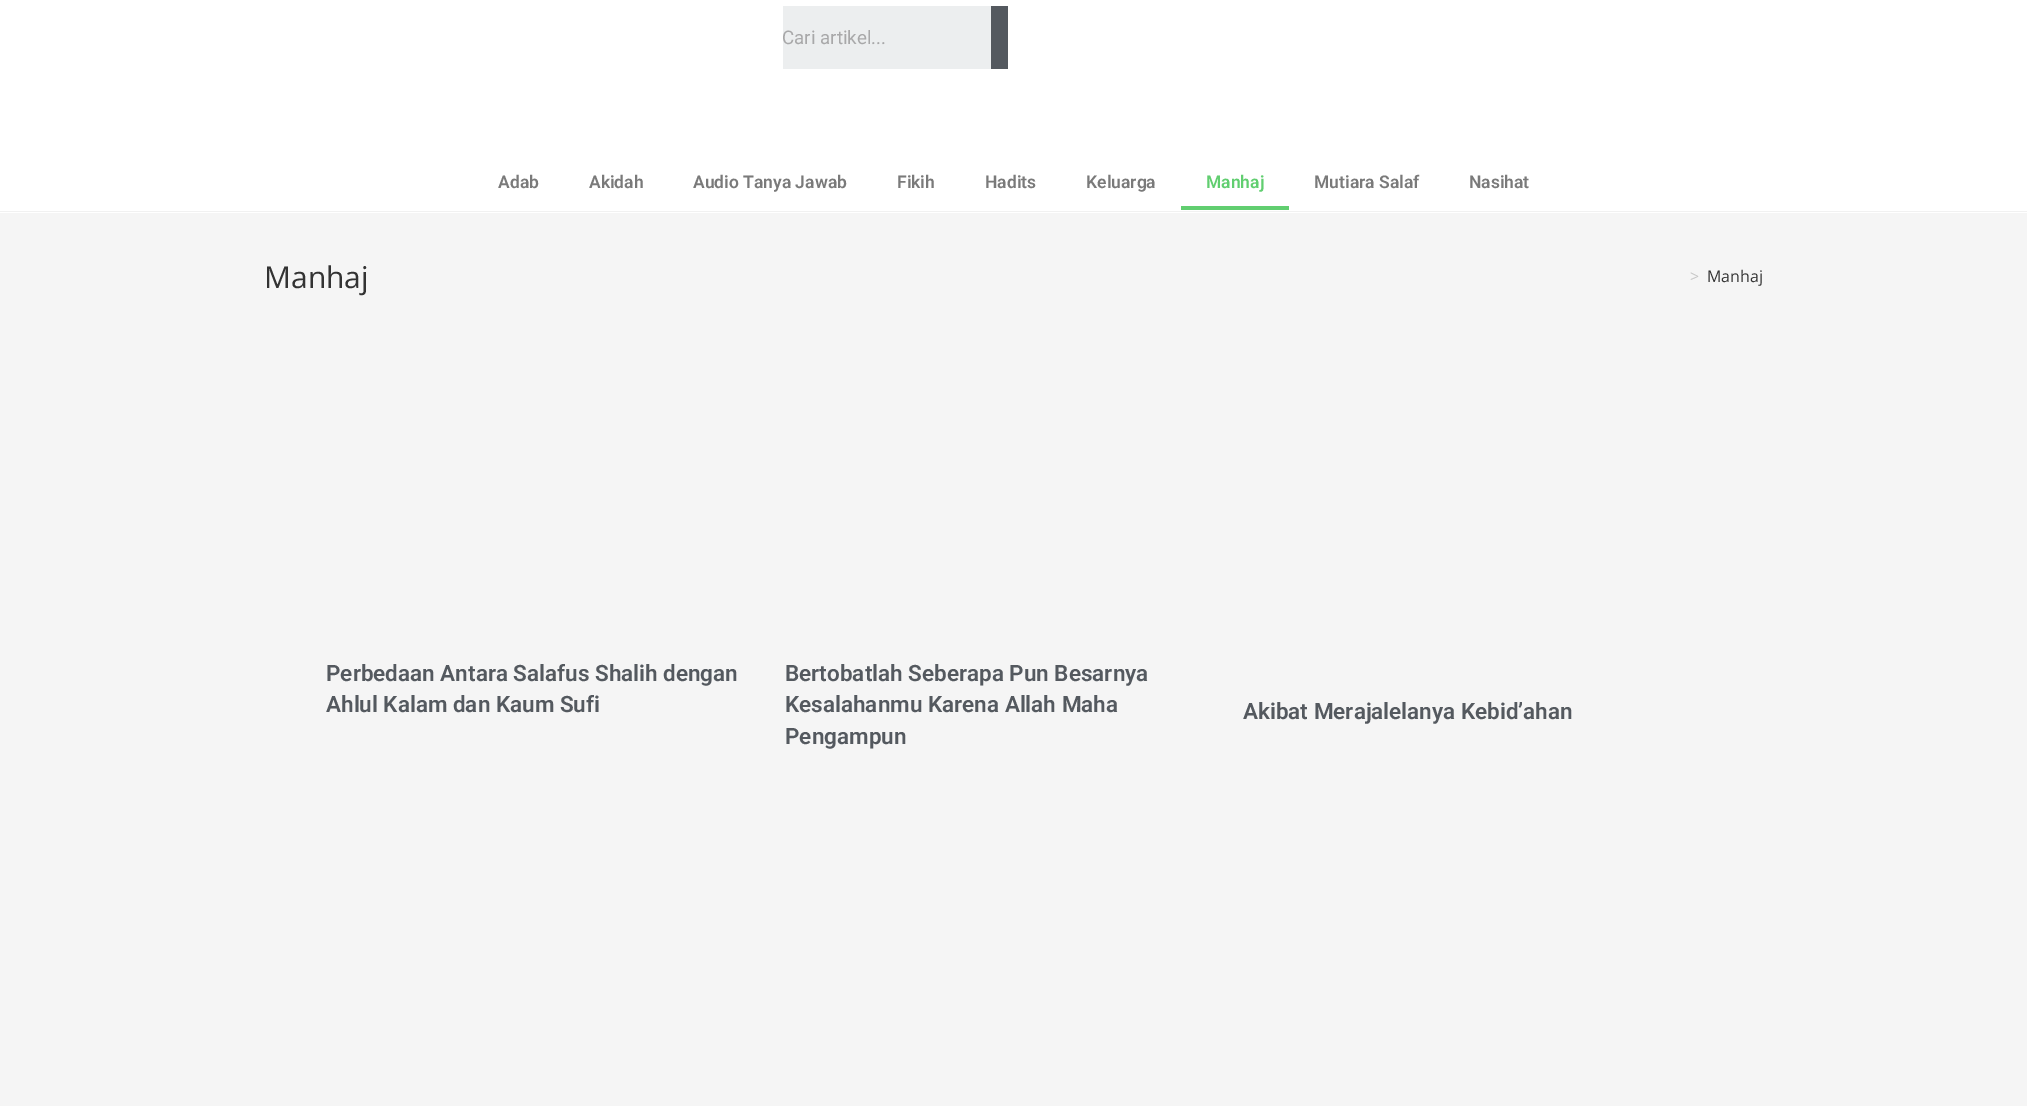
%!PS
<< /PageSize [2027 1106] >> setpagedevice
/rgb { 3 { 255 div 3 1 roll } repeat setrgbcolor } def
/font { [ exch dup neg 0 0 3 -1 roll 0 0 ] selectfont } def
0 1106 translate 1 -1 scale
4 setmiterlimit
245 245 245 rgb
0 0 2027 1106 rectfill
[
  [0 0 2027 213 255 255 255]
  [0 211 2027 1 241 241 241]
  [783 6 208 63 236 238 239]
  [991 6 17 63 84 89 95]
  [1181 206 108 4 97 206 112]
] { aload pop rgb rectfill } forall
/Roboto-Regular 18.75 font
168 168 169 rgb
782 44 moveto (Cari artikel...) show
/Roboto-SemiBold 17.5 font
122 122 122 rgb
[
  [(Adab) 498 188]
  [(Akidah) 589 188]
  [(Audio Tanya Jawab) 693 188]
  [(Fikih) 897 188]
  [(Hadits) 985 188]
  [(Keluarga) 1086 188]
] { aload pop moveto show } forall
97 206 112 rgb
1206 188 moveto (Manhaj) show
122 122 122 rgb
1314 188 moveto (Mutiara Salaf) show
1469 188 moveto (Nasihat) show
/OpenSans-Regular 30 font
51 51 51 rgb
264 288 moveto (Manhaj) show
/OpenSans-Regular 16 font
198 198 198 rgb
1690 282 moveto (>) show
51 51 51 rgb
1707 282 moveto (Manhaj) show
/Roboto-SemiBold 22.5 font
84 89 95 rgb
[
  [(Perbedaan Antara Salafus Shalih dengan) 326 681]
  [(Ahlul Kalam dan Kaum Sufi) 326 712]
  [(Bertobatlah Seberapa Pun Besarnya) 785 681]
  [(Kesalahanmu Karena Allah Maha) 785 712]
  [(Pengampun) 785 744]
  [(Akibat Merajalelanya Kebid’ahan) 1243 719]
] { aload pop moveto show } forall
showpage
